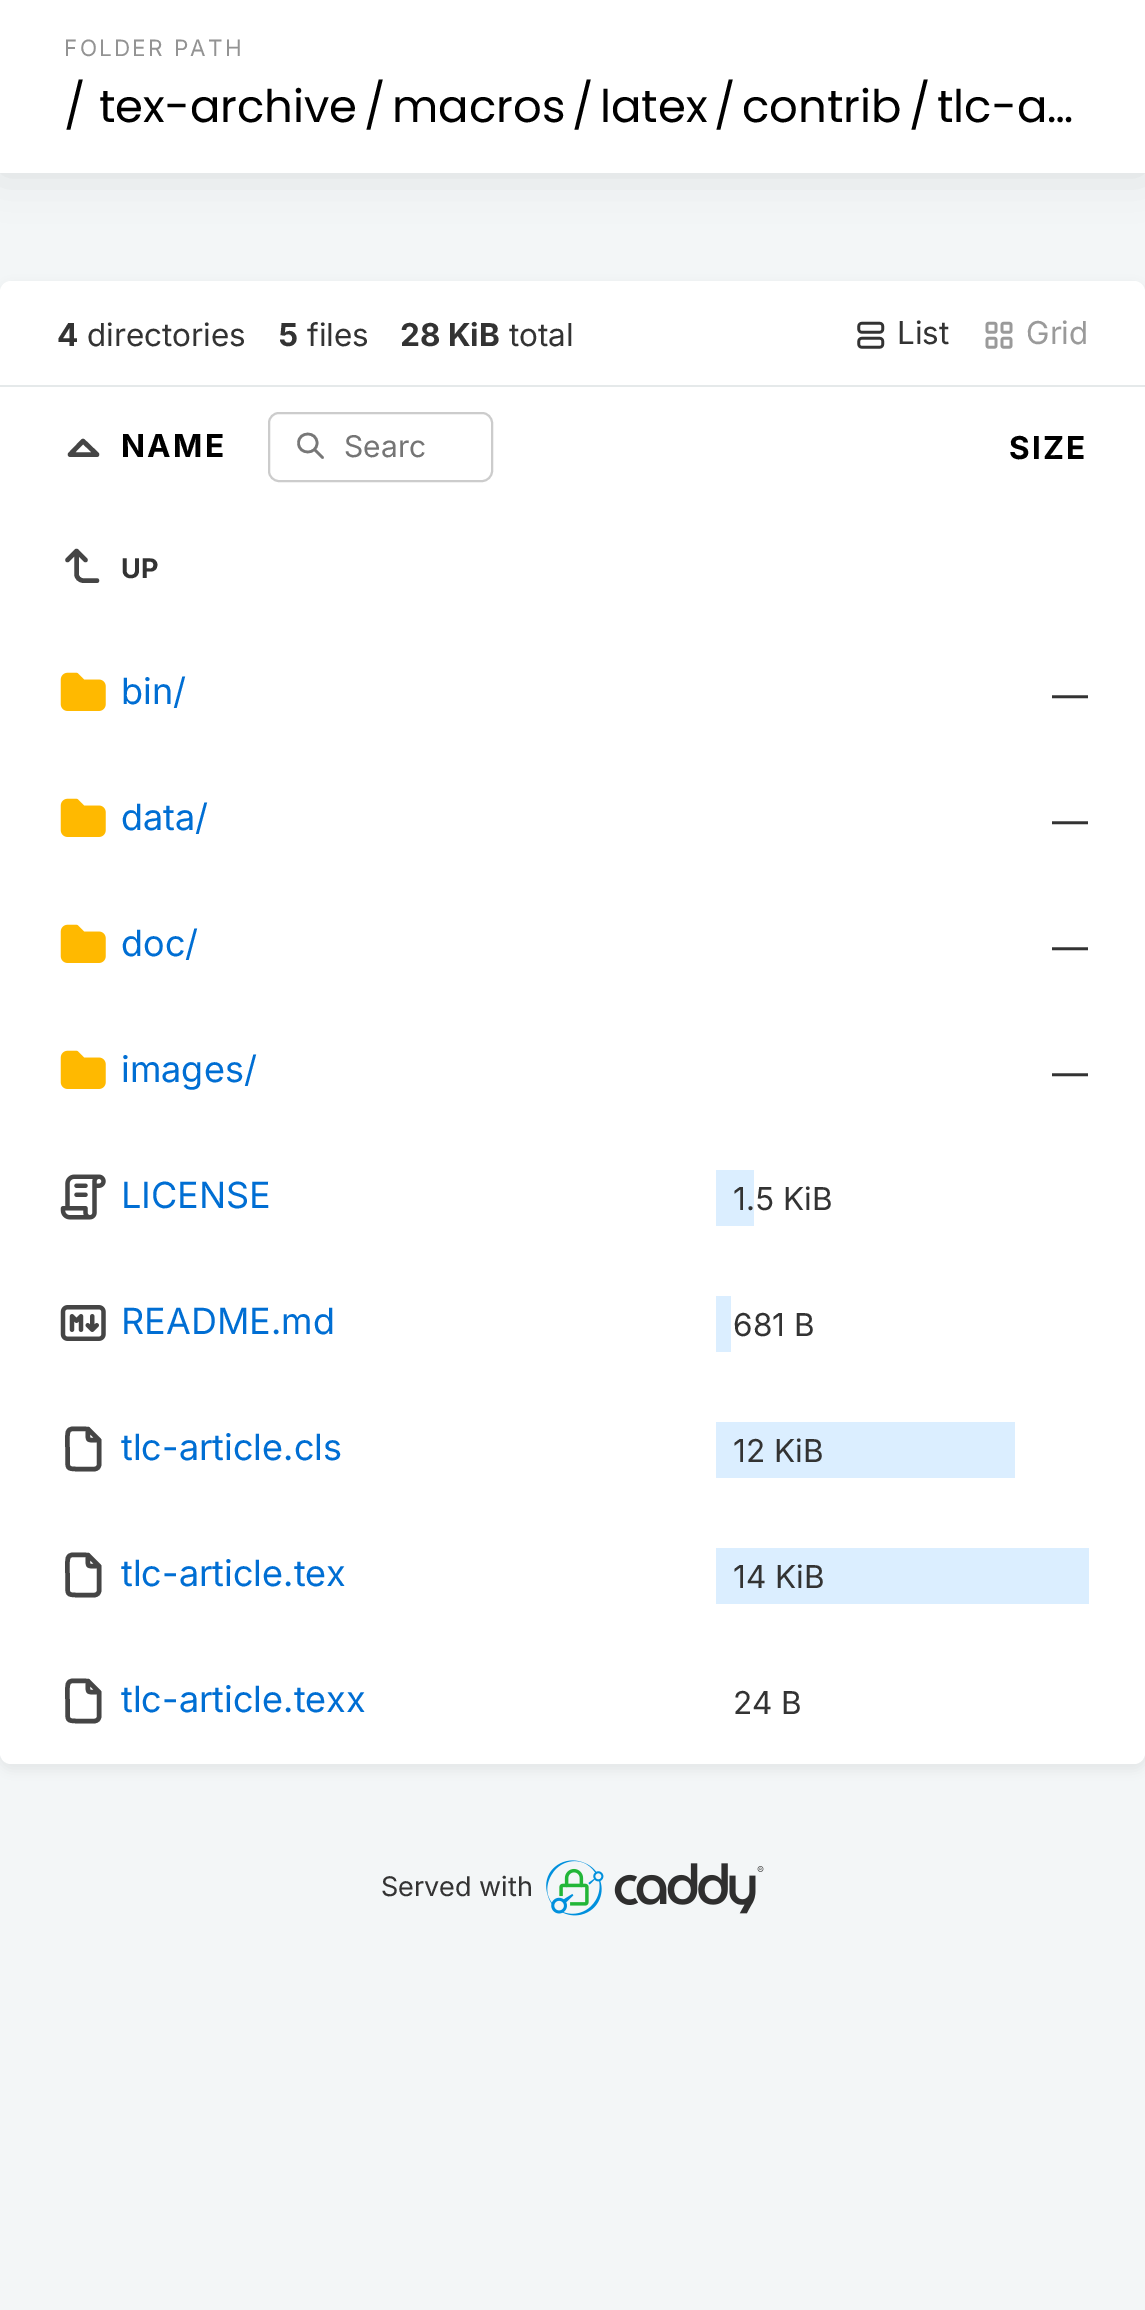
%!PS
<< /PageSize [1145 2310] /PageUsesTransparency true >> setpagedevice
/rgb { 3 { 255 div 3 1 roll } repeat setrgbcolor } def
/font { [ exch dup neg 0 0 3 -1 roll 0 0 ] selectfont } def
/alpha { dup .setfillconstantalpha .setstrokeconstantalpha } def
/roundrect { 5 dict begin { /r /h /w /y /x } { exch def } forall
  x r add y moveto x w add y 2 copy h add r arct x w add y h add x 1 index r arct
  x y h add x y r arct x y 2 copy exch w add exch r arct closepath end } def
/shadow { 12 dict begin { /a /b /q /h /w /y /x } { exch def } forall gsave /was 0 def
  9 -2 -9 { dup b mul 4 div /e exch def 1 sub .425 mul 2.718 exch exp 1 add a .99 .min exch div /now exch def
    1 1 now sub 1 was sub div sub alpha /was now def
    w h .min e 2 mul add 0 gt { x e sub y e sub w e 2 mul add h e 2 mul add
      q e add b .6 mul add w h .min 2 div e add .min 0 .max roundrect fill } if } for grestore end } def
/picture { 5 dict begin { /h /w /y /x /name } { exch def } forall
  gsave x y translate w h scale
  w h 8 [w 0 0 h 0 0] name (r) file false 3 colorimage grestore end } def
0 .pushpdf14devicefilter
0 2310 translate 1 -1 scale
4 setmiterlimit
243 246 247 rgb
0 0 1145 2310 rectfill
0 0 0 rgb
0 0 1145 173 0 22.5 0.1 shadow
255 255 255 rgb
0 0 1145 173 rectfill
0 0 0 rgb
-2 284 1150 1487 14 5.5 0.05 shadow
255 255 255 rgb
0 281 1145 1483 11 roundrect fill
229 233 234 rgb
0 385 1145 2 rectfill
(img/1.rgb) 857 321 28 28 picture
(img/2.rgb) 985 321 28 28 picture
69 69 69 rgb
4.5 setlinewidth
1 setlinecap
1 setlinejoin
97 454.5 moveto 83 441 lineto 70 454.5 lineto 97 454.5 lineto stroke
119 119 119 rgb
2.6 setlinewidth
298.5 443 moveto 298.5 455 317 455 317 443 curveto 317 431 298.5 431 298.5 443 curveto 322.5 457.5 moveto 314.5 449.5 lineto stroke
204 204 204 rgb
2 setlinewidth
0 setlinecap
0 setlinejoin
269 413 223 68 10 roundrect stroke
69 69 69 rgb
4.5 setlinewidth
1 setlinecap
1 setlinejoin
97 580.5 moveto 83 580.5 lineto 79.5 580.5 76.5 577.5 76.5 574 curveto 76.5 551 lineto 67.5 560 lineto 85.5 560 moveto 76.5 551 lineto stroke
(img/3.rgb) 60 672 46 39 picture
(img/3.rgb) 60 798 46 39 picture
(img/3.rgb) 60 924 46 39 picture
(img/3.rgb) 60 1050 46 39 picture
(img/4.rgb) 60 1174 46 46 picture
219 238 255 rgb
716 1170 38 56 rectfill
(img/5.rgb) 60 1305 46 36 picture
716 1296 15 56 rectfill
69 69 69 rgb
88 1429 moveto 88 1442 86 1440 99 1440 curveto 94.5 1469 moveto 76 1469 lineto 67.5 1469 67.5 1467.5 67.5 1459.5 curveto 67.5 1449 lineto 67.5 1425 65 1429 88 1429 curveto 99 1440 lineto 99 1465 lineto 99 1467 97 1469 94.5 1469 curveto closepath stroke
219 238 255 rgb
716 1422 299 56 rectfill
69 69 69 rgb
88 1555 moveto 88 1568 86 1566 99 1566 curveto 94.5 1595 moveto 76 1595 lineto 67.5 1595 67.5 1593.5 67.5 1585.5 curveto 67.5 1575 lineto 67.5 1551 65 1555 88 1555 curveto 99 1566 lineto 99 1591 lineto 99 1593 97 1595 94.5 1595 curveto closepath stroke
219 238 255 rgb
716 1548 373 56 rectfill
69 69 69 rgb
88 1681 moveto 88 1694 86 1692 99 1692 curveto 94.5 1721 moveto 76 1721 lineto 67.5 1721 67.5 1719.5 67.5 1711.5 curveto 67.5 1701 lineto 67.5 1677 65 1681 88 1681 curveto 99 1692 lineto 99 1717 lineto 99 1719 97 1721 94.5 1721 curveto closepath stroke
(img/6.rgb) 546 1860 218 56 picture
/Inter-Regular 22.5 font
147 147 147 rgb
64 56 moveto 2.25 0 (FOLDER PATH) ashow
/Poppins-Regular 45 font
0 0 0 rgb
[
  [(/) 64 122]
  [(tex-archive) 99 122]
  [(/) 364 122]
  [(macros) 392 122]
  [(/) 572 122]
  [(latex) 600 122]
  [(/) 714 122]
  [(contrib) 742 122]
  [(/) 909 122]
  [(tlc-a…) 937 122]
] { aload pop moveto show } forall
/Inter-Bold 31.5 font
51 51 51 rgb
57 346 moveto (4) show
/Inter-Regular 31.5 font
87 346 moveto (directories) show
/Inter-Bold 31.5 font
278 346 moveto (5) show
/Inter-Regular 31.5 font
307 346 moveto (files) show
/Inter-Bold 31.5 font
400 346 moveto (28 KiB) show
/Inter-Regular 31.5 font
509 346 moveto (total) show
897 344 moveto (List) show
154 154 154 rgb
1026 344 moveto (Grid) show
/Inter-Bold 31.5 font
0 0 0 rgb
121 457 moveto 2.25 0 (NAME) ashow
/Inter-Regular 30 font
117 117 117 rgb
344 457 moveto (Searc) show
/Inter-Bold 31.5 font
0 0 0 rgb
1009 459 moveto 2.25 0 (SIZE) ashow
/Inter-Bold 27 font
51 51 51 rgb
121 578 moveto (UP) show
/Inter-Regular 36 font
0 110 211 rgb
121 704 moveto (bin/) show
51 51 51 rgb
1052 708 moveto (—) show
0 110 211 rgb
121 830 moveto (data/) show
51 51 51 rgb
1052 834 moveto (—) show
0 110 211 rgb
121 956 moveto (doc/) show
51 51 51 rgb
1052 960 moveto (—) show
0 110 211 rgb
121 1082 moveto (images/) show
51 51 51 rgb
1052 1086 moveto (—) show
0 110 211 rgb
121 1208 moveto (LICENSE) show
/Inter-Regular 31.5 font
51 51 51 rgb
733 1210 moveto (1.5 KiB) show
/Inter-Regular 36 font
0 110 211 rgb
121 1334 moveto (README.md) show
/Inter-Regular 31.5 font
51 51 51 rgb
733 1336 moveto (681 B) show
/Inter-Regular 36 font
0 110 211 rgb
121 1460 moveto (tlc-article.cls) show
/Inter-Regular 31.5 font
51 51 51 rgb
733 1462 moveto (12 KiB) show
/Inter-Regular 36 font
0 110 211 rgb
121 1586 moveto (tlc-article.tex) show
/Inter-Regular 31.5 font
51 51 51 rgb
733 1588 moveto (14 KiB) show
/Inter-Regular 36 font
0 110 211 rgb
121 1712 moveto (tlc-article.texx) show
/Inter-Regular 31.5 font
51 51 51 rgb
733 1714 moveto (24 B) show
/Inter-Regular 27 font
381 1896 moveto (Served with) show
.poppdf14devicefilter showpage
